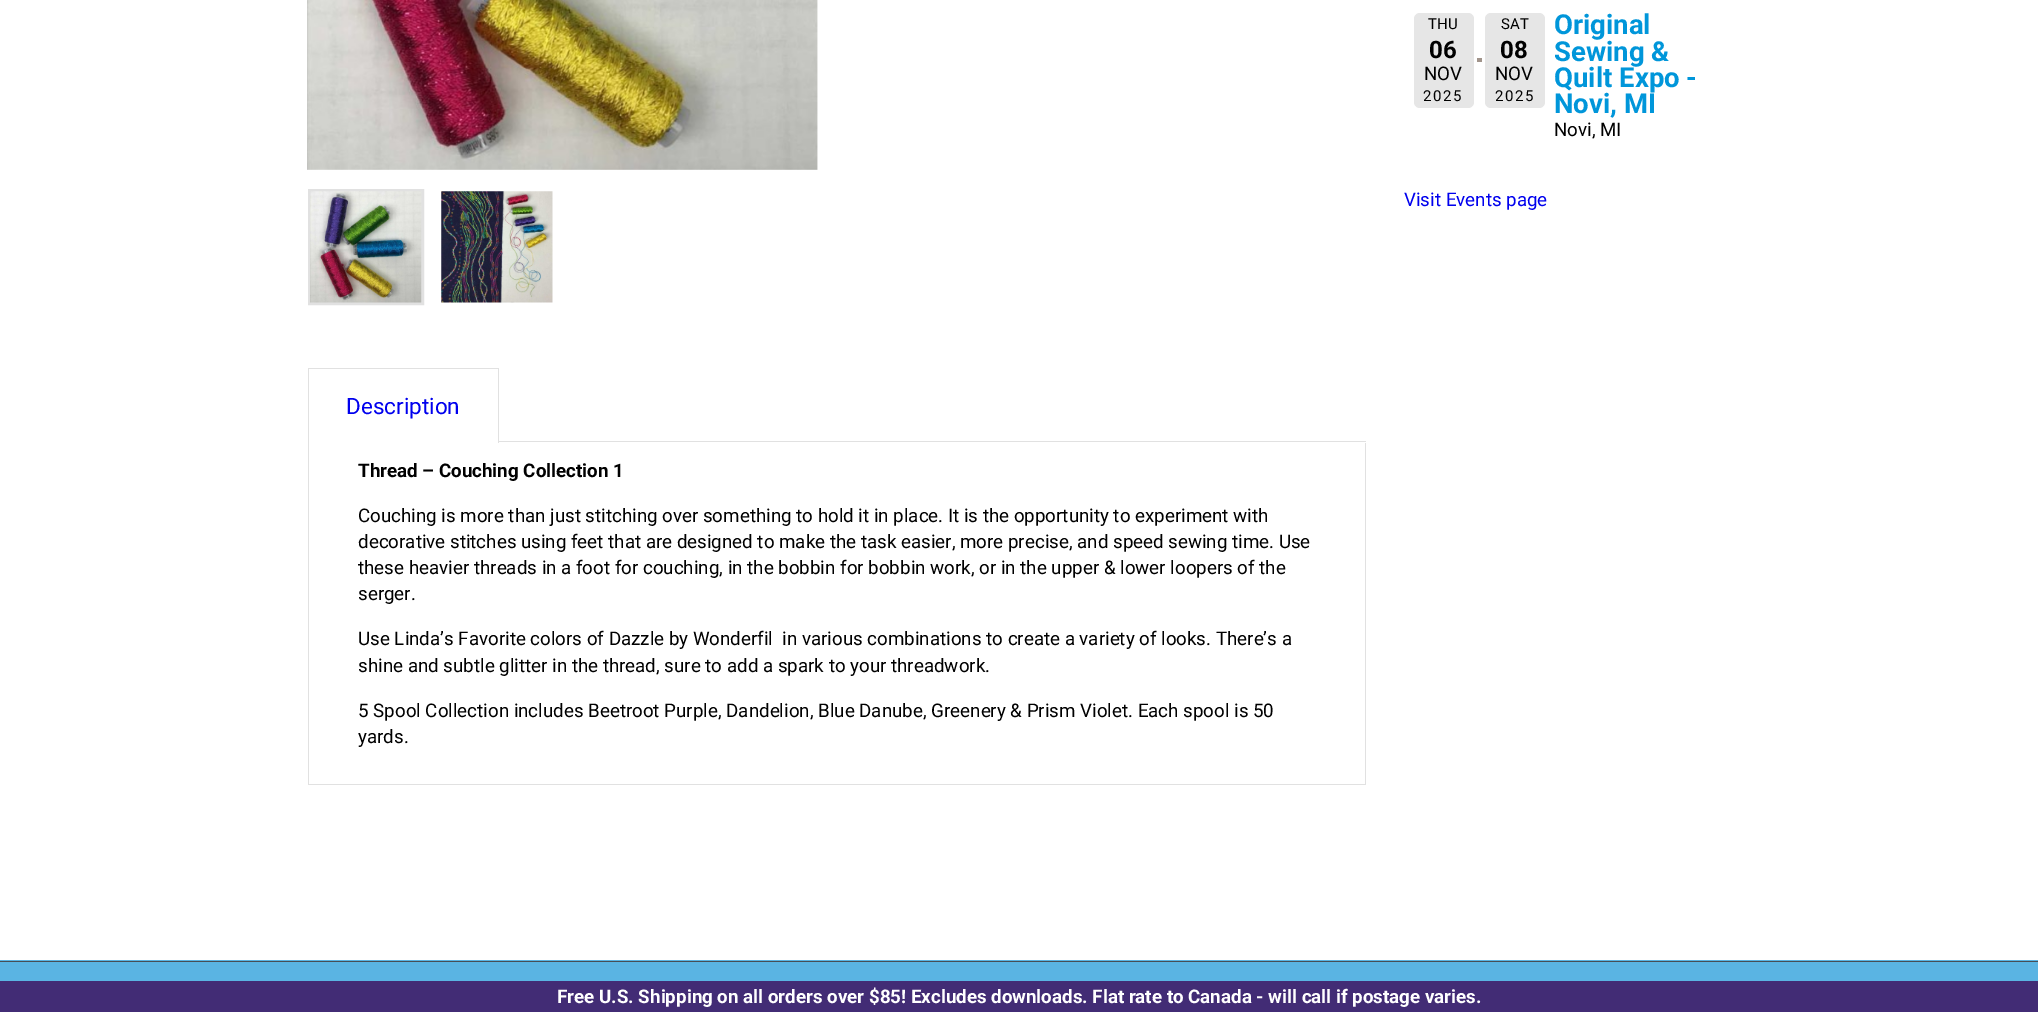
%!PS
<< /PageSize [2038 1012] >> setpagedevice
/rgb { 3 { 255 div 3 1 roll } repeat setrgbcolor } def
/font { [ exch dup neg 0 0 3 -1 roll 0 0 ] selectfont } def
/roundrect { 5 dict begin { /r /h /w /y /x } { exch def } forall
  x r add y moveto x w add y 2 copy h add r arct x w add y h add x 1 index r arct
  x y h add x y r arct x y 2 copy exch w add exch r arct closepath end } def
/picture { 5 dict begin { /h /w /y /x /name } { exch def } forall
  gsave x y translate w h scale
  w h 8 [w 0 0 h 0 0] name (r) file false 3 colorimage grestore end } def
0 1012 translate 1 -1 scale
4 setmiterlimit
255 255 255 rgb
0 0 2038 1012 rectfill
161 148 139 rgb
1477 58 5 4 rectfill
230 230 230 rgb
1414 13 60 95 6 roundrect fill
1485 13 60 95 6 roundrect fill
(img/1.rgb) 307 0 511 170 picture
225 225 225 rgb
3 setlinewidth
309.5 190.5 113 113 rectstroke
(img/2.rgb) 310 191 112 112 picture
(img/3.rgb) 441 191 112 112 picture
[
  [308 368 191 1 225 225 225]
  [498 368 1 75 225 225 225]
  [308 368 1 75 225 225 225]
  [499 441 867 1 225 225 225]
  [1365 443 1 342 225 225 225]
  [308 784 1058 1 225 225 225]
  [308 443 1 342 225 225 225]
  [0 960 2038 21 90 180 227]
  [0 961 2038 1 72 78 86]
  [0 981 2038 31 66 44 117]
] { aload pop rgb rectfill } forall
/Roboto-Regular 15 font
0 0 0 rgb
1428 29 moveto (THU) show
/Roboto-Bold 24 font
1429 58 moveto (06) show
/Roboto-Regular 18.75 font
1424 80 moveto (NOV) show
/Roboto-Regular 15 font
1423 101 moveto 1.5 0 (2025) ashow
1501 29 moveto (SAT) show
/Roboto-Bold 24 font
1500 58 moveto (08) show
/Roboto-Regular 18.75 font
1495 80 moveto (NOV) show
/Roboto-Regular 15 font
1495 101 moveto 1.5 0 (2025) ashow
/Roboto-Bold 27.5 font
0 150 218 rgb
[
  [(Original) 1554 34]
  [(Sewing &) 1554 61]
  [(Quilt Expo -) 1554 87]
  [(Novi, MI) 1554 113]
] { aload pop moveto show } forall
/Roboto-Regular 18.75 font
0 0 0 rgb
1554 136 moveto (Novi, MI) show
0 0 238 rgb
1404 206 moveto (Visit Events page) show
/Roboto-Regular 22.5 font
346 414 moveto (Description) show
/Roboto-Bold 18.75 font
0 0 0 rgb
358 477 moveto (Thread – Couching Collection 1) show
/Roboto-Regular 18.75 font
[
  [(Couching is more than just stitching over something to hold it in place. It is the opportunity to experiment with) 358 522]
  [(decorative stitches using feet that are designed to make the task easier, more precise, and speed sewing time. Use) 358 548]
  [(these heavier threads in a foot for couching, in the bobbin for bobbin work, or in the upper & lower loopers of the) 358 574]
  [(serger.) 358 600]
  [(Use Linda’s Favorite colors of Dazzle by Wonderfil  in various combinations to create a variety of looks. There’s a) 358 645]
  [(shine and subtle glitter in the thread, sure to add a spark to your threadwork.) 358 672]
  [(5 Spool Collection includes Beetroot Purple, Dandelion, Blue Danube, Greenery & Prism Violet. Each spool is 50) 358 717]
  [(yards.) 358 743]
] { aload pop moveto show } forall
/Roboto-Bold 18.75 font
255 255 255 rgb
557 1003 moveto (Free U.S. Shipping on all orders over $85! Excludes downloads. Flat rate to Canada - will call if postage varies.) show
showpage
